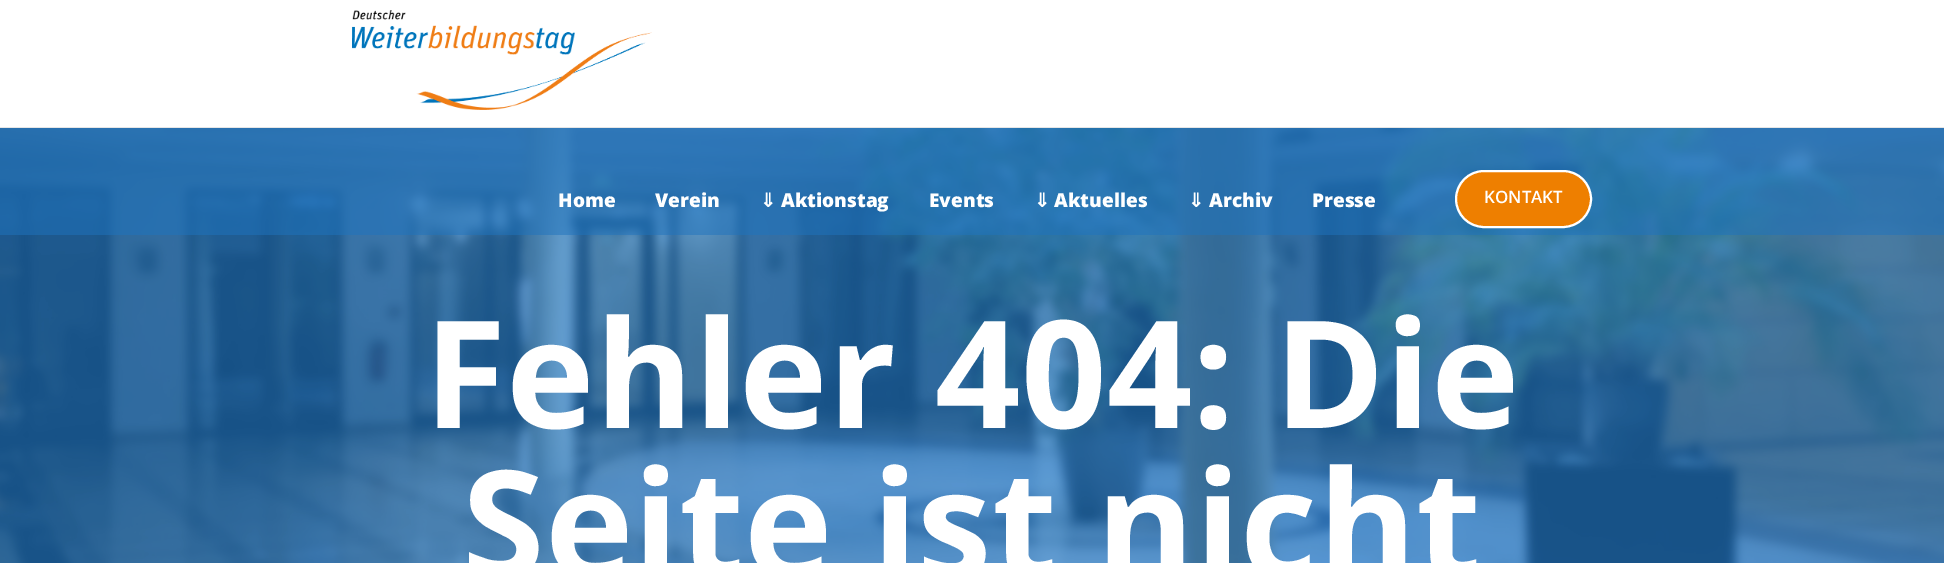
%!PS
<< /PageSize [1944 563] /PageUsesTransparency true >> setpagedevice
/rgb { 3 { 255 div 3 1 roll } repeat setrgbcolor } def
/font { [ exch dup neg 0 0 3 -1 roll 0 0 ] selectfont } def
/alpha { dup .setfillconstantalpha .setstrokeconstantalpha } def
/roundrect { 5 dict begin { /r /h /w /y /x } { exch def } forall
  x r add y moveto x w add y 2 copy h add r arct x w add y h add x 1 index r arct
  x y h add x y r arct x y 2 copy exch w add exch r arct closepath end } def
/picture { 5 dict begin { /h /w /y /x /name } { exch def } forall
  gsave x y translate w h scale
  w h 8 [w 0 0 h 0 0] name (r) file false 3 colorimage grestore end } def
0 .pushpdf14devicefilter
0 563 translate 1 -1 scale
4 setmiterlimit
255 255 255 rgb
0 0 1944 563 rectfill
(img/1.rgb) 352 10 300 100 picture
230 230 230 rgb
0 127 1944 1 rectfill
30 115 190 rgb
0 128 1944 435 rectfill
(img/2.rgb) 0 128 1944 435 picture
0.5 alpha
0 128 1944 107 rectfill
1 alpha
238 127 0 rgb
1456 171 135 56 28 roundrect gsave fill grestore
255 255 255 rgb
2 setlinewidth
stroke
/OpenSans-ExtraBold 19 font
558 207 moveto (Home) show
655 207 moveto (Verein) show
/DejaVuSans-Bold 19 font
760 207 moveto (⇓) show
/OpenSans-ExtraBold 19 font
781 207 moveto (Aktionstag) show
929 207 moveto (Events) show
/DejaVuSans-Bold 19 font
1034 207 moveto (⇓) show
/OpenSans-ExtraBold 19 font
1054 207 moveto (Aktuelles) show
/DejaVuSans-Bold 19 font
1188 207 moveto (⇓) show
/OpenSans-ExtraBold 19 font
1209 207 moveto (Archiv) show
1312 207 moveto (Presse) show
/OpenSans-SemiBold 17 font
1484 203 moveto (KONTAKT) show
/OpenSans-Bold 150 font
424 428 moveto (Fehler 404: Die) show
462 578 moveto (Seite ist nicht) show
.poppdf14devicefilter showpage
